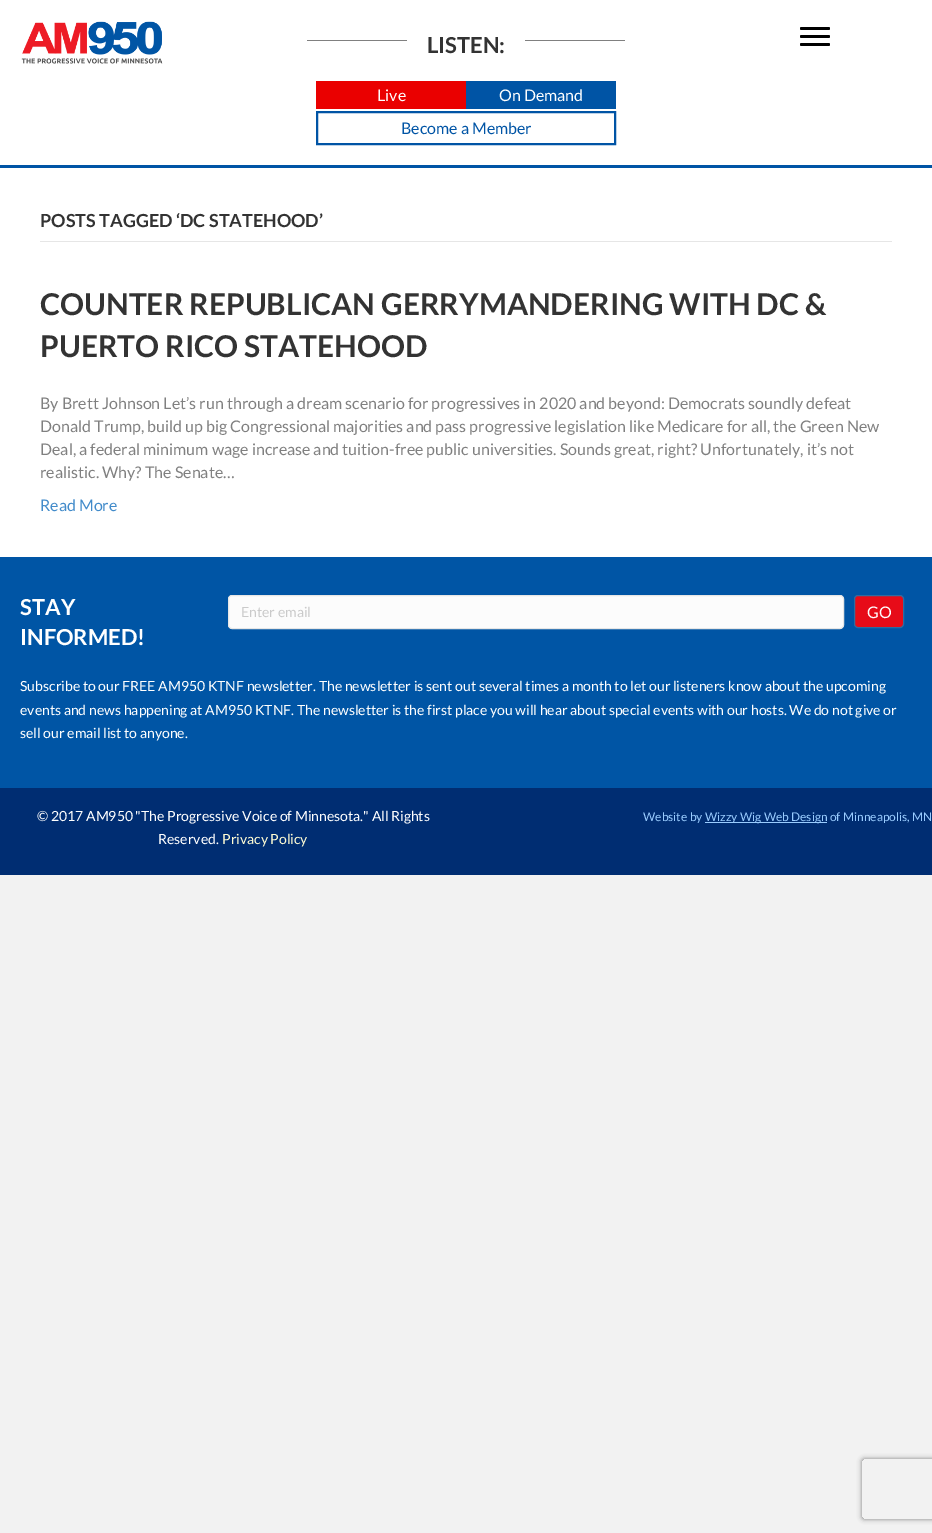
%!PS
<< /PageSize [932 1533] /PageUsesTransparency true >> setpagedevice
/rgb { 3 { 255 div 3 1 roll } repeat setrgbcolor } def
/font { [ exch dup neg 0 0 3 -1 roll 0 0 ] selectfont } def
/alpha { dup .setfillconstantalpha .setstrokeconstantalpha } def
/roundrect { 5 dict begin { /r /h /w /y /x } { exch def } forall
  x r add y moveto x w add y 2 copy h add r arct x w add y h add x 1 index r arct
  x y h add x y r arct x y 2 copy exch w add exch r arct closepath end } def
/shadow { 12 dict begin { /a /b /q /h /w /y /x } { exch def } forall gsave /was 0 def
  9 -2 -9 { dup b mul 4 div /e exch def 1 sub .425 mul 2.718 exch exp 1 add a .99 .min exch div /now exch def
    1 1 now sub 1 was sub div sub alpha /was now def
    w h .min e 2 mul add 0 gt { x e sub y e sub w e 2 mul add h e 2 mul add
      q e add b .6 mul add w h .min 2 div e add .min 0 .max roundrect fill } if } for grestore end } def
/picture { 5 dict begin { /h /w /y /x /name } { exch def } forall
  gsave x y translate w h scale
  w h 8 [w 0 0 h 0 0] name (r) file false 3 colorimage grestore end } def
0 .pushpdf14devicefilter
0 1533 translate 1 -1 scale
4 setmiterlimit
242 242 242 rgb
0 0 932 1533 rectfill
255 255 255 rgb
0 0 932 165 rectfill
0 84 165 rgb
0 165 932 3 rectfill
(img/1.rgb) 21 21 142 43 picture
[
  [307 40 100 1 128 128 128]
  [525 40 100 1 128 128 128]
  [316 81 150 28 234 0 0]
  [466 81 150 28 0 84 165]
] { aload pop rgb rectfill } forall
2 setlinewidth
317 112 298 32 rectstroke
0 0 0 rgb
800 35 30 3 1.5 roundrect fill
800 27 30 3 1.5 roundrect fill
800 43 30 3 1.5 roundrect fill
[
  [0 168 932 389 255 255 255]
  [40 241 852 1 230 230 230]
  [0 557 932 231 0 85 165]
] { aload pop rgb rectfill } forall
252 252 252 rgb
228.5 595.5 615 33 3.5 roundrect gsave fill grestore
230 230 230 rgb
1 setlinewidth
stroke
231 11 24 rgb
854.5 595.5 49 32 3.5 roundrect gsave fill grestore
45 108 162 rgb
stroke
gsave
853 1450 moveto 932 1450 lineto 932 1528 lineto 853 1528 lineto closepath 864 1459 moveto 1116 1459 lineto 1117 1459 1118 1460 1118 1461 curveto 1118 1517 lineto 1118 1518 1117 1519 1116 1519 curveto 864 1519 lineto 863 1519 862 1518 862 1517 curveto 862 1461 lineto 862 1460 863 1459 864 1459 curveto closepath eoclip newpath
128 128 128 rgb
862 1459 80 60 2 2.5 1 shadow
grestore
0 45 114 rgb
0 788 932 87 rectfill
153 204 255 rgb
705 822 122 1 rectfill
/Lato-Bold 22 font
51 51 51 rgb
427 53 moveto (LISTEN:) show
/Lato-Regular 16 font
255 255 255 rgb
377 101 moveto (Live) show
499 101 moveto (On Demand) show
0 84 165 rgb
401 134 moveto (Become a Member) show
/Lato-Bold 18 font
51 51 51 rgb
40 227 moveto (POSTS TAGGED ‘DC STATEHOOD’) show
/Lato-Bold 30 font
40 315 moveto (COUNTER REPUBLICAN GERRYMANDERING WITH DC &) show
40 357 moveto (PUERTO RICO STATEHOOD) show
/Lato-Regular 16 font
128 128 128 rgb
[
  [(By Brett Johnson Let’s run through a dream scenario for progressives in 2020 and beyond: Democrats soundly defeat) 40 409]
  [(Donald Trump, build up big Congressional majorities and pass progressive legislation like Medicare for all, the Green New) 40 432]
  [(Deal, a federal minimum wage increase and tuition-free public universities. Sounds great, right? Unfortunately, it’s not) 40 455]
  [(realistic. Why? The Senate…) 40 478]
] { aload pop moveto show } forall
66 139 202 rgb
40 511 moveto (Read More) show
/Lato-Bold 22 font
255 255 255 rgb
20 615 moveto (STAY) show
20 645 moveto (INFORMED!) show
/Lato-Regular 14 font
202 202 202 rgb
241 617 moveto (Enter email) show
/Lato-Regular 16 font
255 255 255 rgb
867 618 moveto (GO) show
/Lato-Regular 14 font
[
  [(Subscribe to our FREE AM950 KTNF newsletter. The newsletter is sent out several times a month to let our listeners know about the upcoming) 20 691]
  [(events and news happening at AM950 KTNF. The newsletter is the first place you will hear about special events with our hosts. We do not give or) 20 715]
  [(sell our email list to anyone.) 20 738]
  [(© 2017 AM950 "The Progressive Voice of Minnesota." All Rights) 37 821]
  [(Reserved.) 158 844]
] { aload pop moveto show } forall
255 252 211 rgb
222 844 moveto (Privacy Policy) show
/Lato-Regular 12 font
153 204 255 rgb
643 821 moveto (Website by) show
705 821 moveto (Wizzy Wig Web Design of Minneapolis, MN) show
.poppdf14devicefilter showpage
